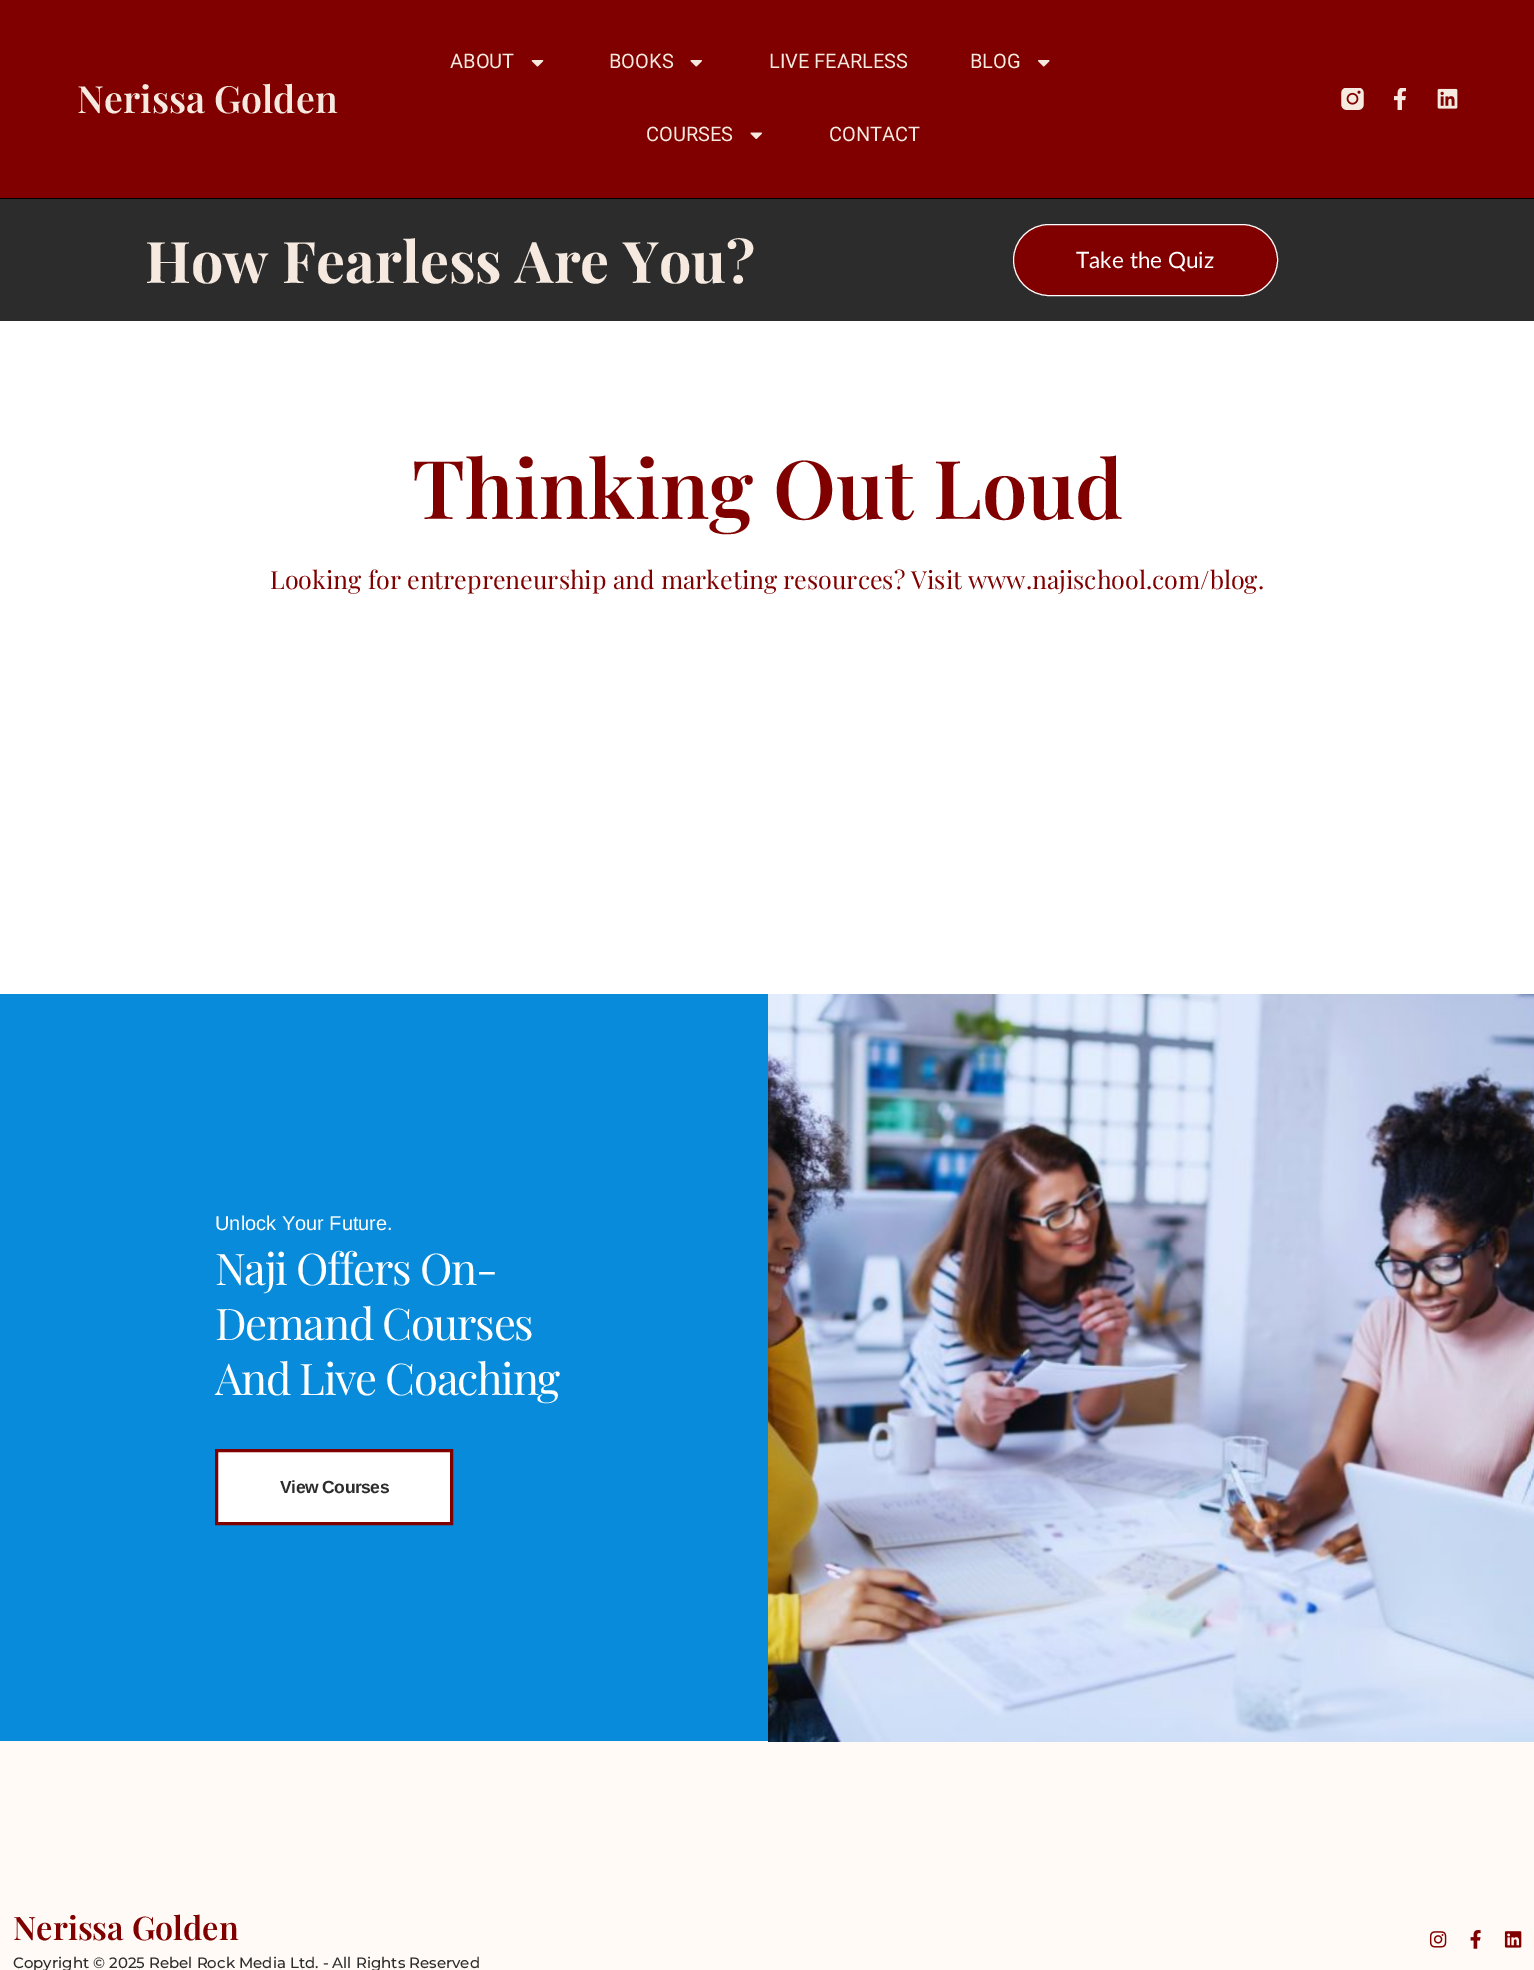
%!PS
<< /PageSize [1534 1970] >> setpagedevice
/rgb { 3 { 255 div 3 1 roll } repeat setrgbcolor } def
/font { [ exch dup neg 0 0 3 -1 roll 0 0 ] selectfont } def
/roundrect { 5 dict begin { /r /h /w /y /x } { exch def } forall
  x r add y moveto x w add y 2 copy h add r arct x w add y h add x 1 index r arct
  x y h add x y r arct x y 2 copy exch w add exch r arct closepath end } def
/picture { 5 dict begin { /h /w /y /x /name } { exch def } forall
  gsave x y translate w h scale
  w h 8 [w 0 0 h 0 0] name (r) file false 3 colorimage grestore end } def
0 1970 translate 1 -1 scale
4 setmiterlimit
255 255 255 rgb
0 0 1534 1970 rectfill
128 0 0 rgb
0 0 1534 198 rectfill
0 0 0 rgb
0 198 1534 1 rectfill
(img/1.rgb) 531 60 13 7 picture
(img/2.rgb) 690 60 12 7 picture
(img/3.rgb) 1038 60 12 7 picture
(img/4.rgb) 750 132 12 7 picture
(img/5.rgb) 1341 88 23 22 picture
(img/6.rgb) 1393 88 14 22 picture
(img/7.rgb) 1437 88 21 21 picture
44 44 44 rgb
0 199 1534 122 rectfill
128 0 0 rgb
1013.5 224.5 264 71 35.5 roundrect gsave fill grestore
255 255 255 rgb
stroke
255 250 245 rgb
0 1741 1534 229 rectfill
7 139 218 rgb
0 994 768 747 rectfill
255 255 255 rgb
216.5 1450.5 moveto 451.5 1450.5 lineto 451.5 1523.5 lineto 216.5 1523.5 lineto closepath gsave fill grestore
128 0 0 rgb
3 setlinewidth
stroke
(img/8.rgb) 768 994 766 748 picture
(img/9.rgb) 1429 1931 18 17 picture
(img/10.rgb) 1470 1930 11 19 picture
(img/11.rgb) 1504 1931 18 17 picture
/PlayfairDisplay-SemiBold 37.5 font
245 233 224 rgb
77 113 moveto (Nerissa Golden) show
/Roboto-Regular 20 font
[
  [(ABOUT) 450 68]
  [(BOOKS) 609 68]
  [(LIVE FEARLESS) 769 68]
  [(BLOG) 970 68]
  [(COURSES) 646 141]
  [(CONTACT) 829 141]
] { aload pop moveto show } forall
/PlayfairDisplay-Bold 57.5 font
145 283 moveto (How Fearless Are You?) show
/Lato-Regular 22.5 font
255 255 255 rgb
1076 268 moveto (Take the Quiz) show
/PlayfairDisplay-SemiBold 81.25 font
128 0 0 rgb
412 519 moveto (Thinking Out Loud) show
/PlayfairDisplay-Regular 25 font
270 589 moveto (Looking for entrepreneurship and marketing resources? Visit www.najischool.com/blog.) show
/LiberationSans-Regular 20 font
255 255 255 rgb
215 1230 moveto (Unlock Your Future.) show
/PlayfairDisplay-Regular 43.75 font
215 1285 moveto -1.4 0 (Naji Offers On-) ashow
215 1340 moveto -1.4 0 (Demand Courses) ashow
215 1395 moveto -1.4 0 (And Live Coaching) ashow
/LiberationSans-Bold 17.5 font
44 44 44 rgb
280 1493 moveto -0.5 0 (View Courses) ashow
/PlayfairDisplay-SemiBold 32.5 font
128 0 0 rgb
13 1940 moveto (Nerissa Golden) show
/Montserrat-Medium 15 font
44 44 44 rgb
13 1968 moveto (Copyright © 2025 Rebel Rock Media Ltd. - All Rights Reserved) show
showpage
